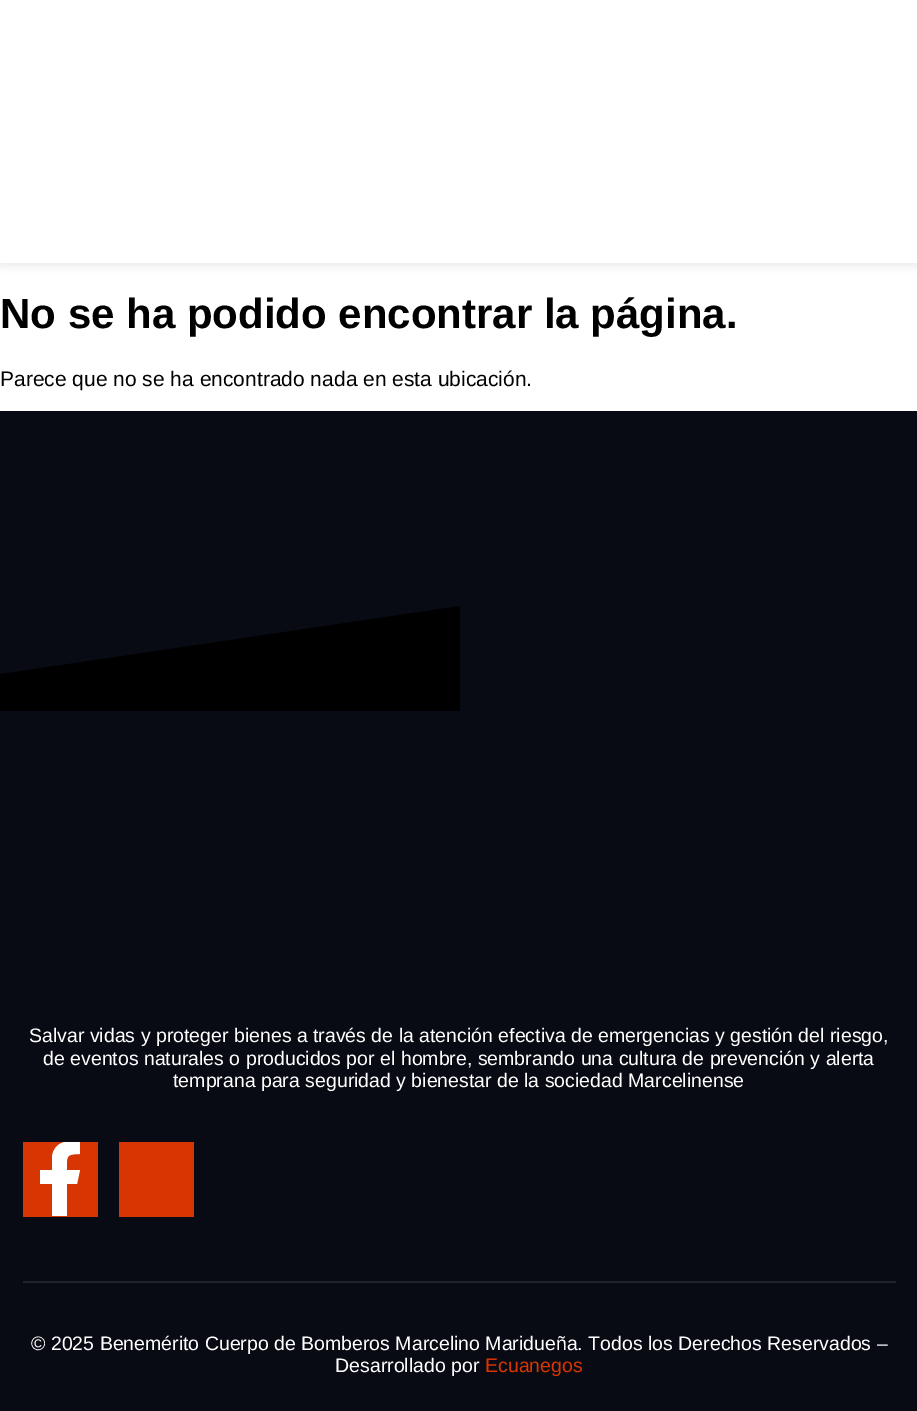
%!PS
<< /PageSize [917 1411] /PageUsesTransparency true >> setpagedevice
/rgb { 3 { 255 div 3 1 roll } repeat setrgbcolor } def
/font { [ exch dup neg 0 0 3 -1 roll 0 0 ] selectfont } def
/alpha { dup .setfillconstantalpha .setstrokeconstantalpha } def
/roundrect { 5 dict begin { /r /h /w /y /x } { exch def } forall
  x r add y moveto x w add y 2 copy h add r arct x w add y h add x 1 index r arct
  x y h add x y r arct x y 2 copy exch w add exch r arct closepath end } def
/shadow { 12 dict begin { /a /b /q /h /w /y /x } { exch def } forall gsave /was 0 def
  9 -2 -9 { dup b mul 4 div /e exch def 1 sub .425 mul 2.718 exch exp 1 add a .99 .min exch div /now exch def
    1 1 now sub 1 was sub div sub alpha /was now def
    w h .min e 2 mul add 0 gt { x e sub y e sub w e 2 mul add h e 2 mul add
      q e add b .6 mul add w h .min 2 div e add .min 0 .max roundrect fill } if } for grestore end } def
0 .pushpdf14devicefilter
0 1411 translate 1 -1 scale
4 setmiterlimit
255 255 255 rgb
0 0 917 1411 rectfill
0 0 0 rgb
0 3 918 263 0 4 0.08 shadow
255 255 255 rgb
0 0 917 263 rectfill
8 10 20 rgb
0 411 917 1000 rectfill
0 0 0 rgb
-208 705 moveto 460 606 lineto 460 711 lineto -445 711 lineto -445 606 lineto closepath fill
215 53 2 rgb
23 1142 75 75 rectfill
gsave
23 1142 75 75 rectclip
255 255 255 rgb
77 1184 moveto 80 1170 lineto 67 1170 lineto 67 1157 65 1154 80 1154 curveto 80 1142 lineto 68 1140 55 1141 52 1156 curveto 52 1170 lineto 40 1170 lineto 40 1184 lineto 52 1184 lineto 52 1216 lineto 67 1216 lineto 67 1184 lineto closepath fill
grestore
119 1142 75 75 rectfill
33 35 44 rgb
23 1281 873 2 rectfill
/LiberationSans-Bold 42 font
0 0 0 rgb
0 328 moveto (No se ha podido encontrar la página.) show
/LiberationSans-Regular 21 font
0 386 moveto (Parece que no se ha encontrado nada en esta ubicación.) show
/LiberationSans-Regular 19.5 font
255 255 255 rgb
[
  [(Salvar vidas y proteger bienes a través de la atención efectiva de emergencias y gestión del riesgo,) 29 1042]
  [(de eventos naturales o producidos por el hombre, sembrando una cultura de prevención y alerta) 43 1065]
  [(temprana para seguridad y bienestar de la sociedad Marcelinense) 173 1087]
  [(© 2025 Benemérito Cuerpo de Bomberos Marcelino Maridueña. Todos los Derechos Reservados –) 31 1350]
  [(Desarrollado por) 335 1372]
] { aload pop moveto show } forall
215 53 2 rgb
485 1372 moveto (Ecuanegos) show
.poppdf14devicefilter showpage
